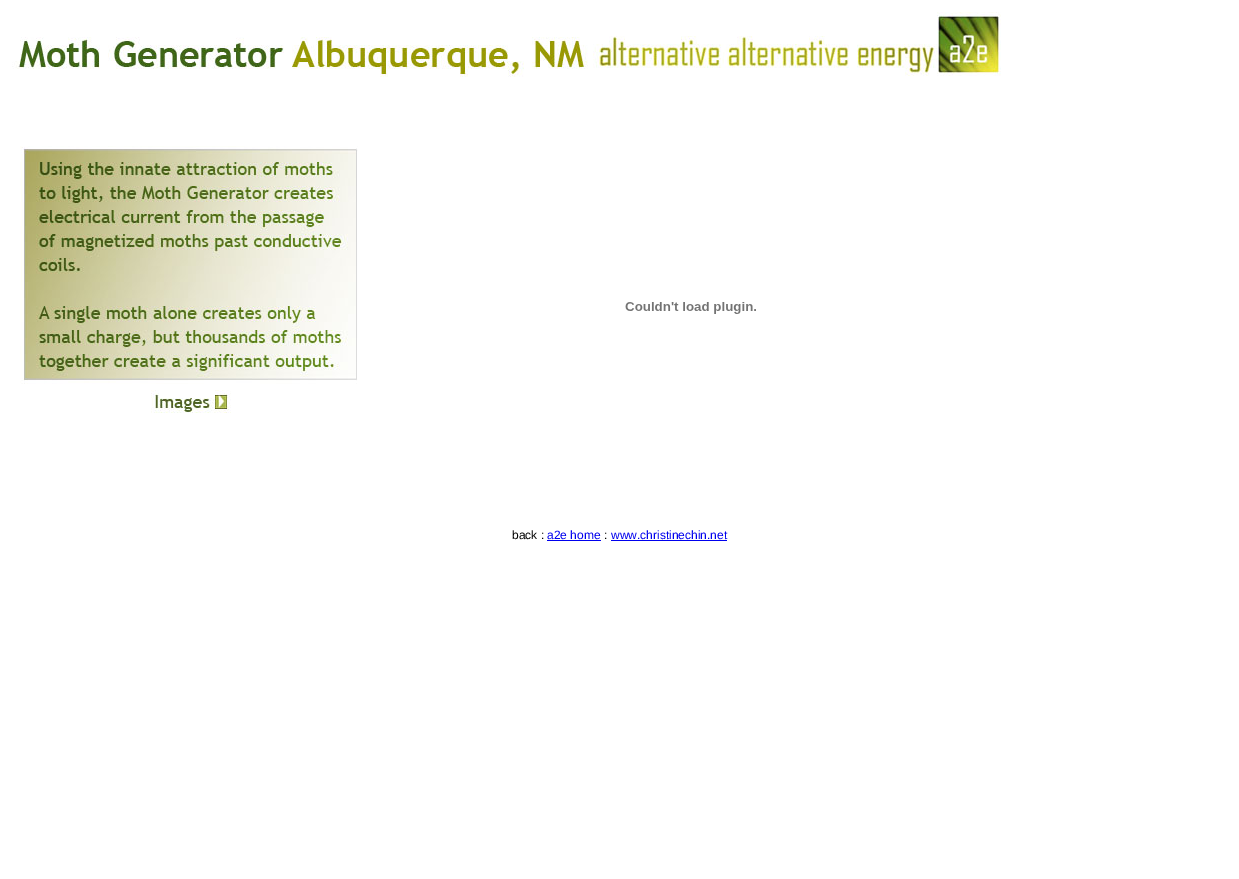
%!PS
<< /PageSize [1239 879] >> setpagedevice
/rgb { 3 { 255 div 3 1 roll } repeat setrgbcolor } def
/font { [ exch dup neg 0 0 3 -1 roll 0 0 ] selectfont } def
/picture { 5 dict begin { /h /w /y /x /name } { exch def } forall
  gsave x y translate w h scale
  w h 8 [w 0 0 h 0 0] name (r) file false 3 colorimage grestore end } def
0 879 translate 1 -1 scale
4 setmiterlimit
255 255 255 rgb
0 0 1239 879 rectfill
(img/1.rgb) 12 37 576 40 picture
(img/2.rgb) 593 12 408 64 picture
(img/3.rgb) 20 146 338 238 picture
(img/4.rgb) 151 390 80 23 picture
(img/5.rgb) 625 302 131 12 picture
0 0 238 rgb
547 540 54 1 rectfill
611 540 116 1 rectfill
/LiberationSans-Regular 12 font
0 0 0 rgb
512 539 moveto (back :) show
0 0 238 rgb
547 539 moveto (a2e home) show
0 0 0 rgb
604 539 moveto (:) show
0 0 238 rgb
611 539 moveto (www.christinechin.net) show
showpage
